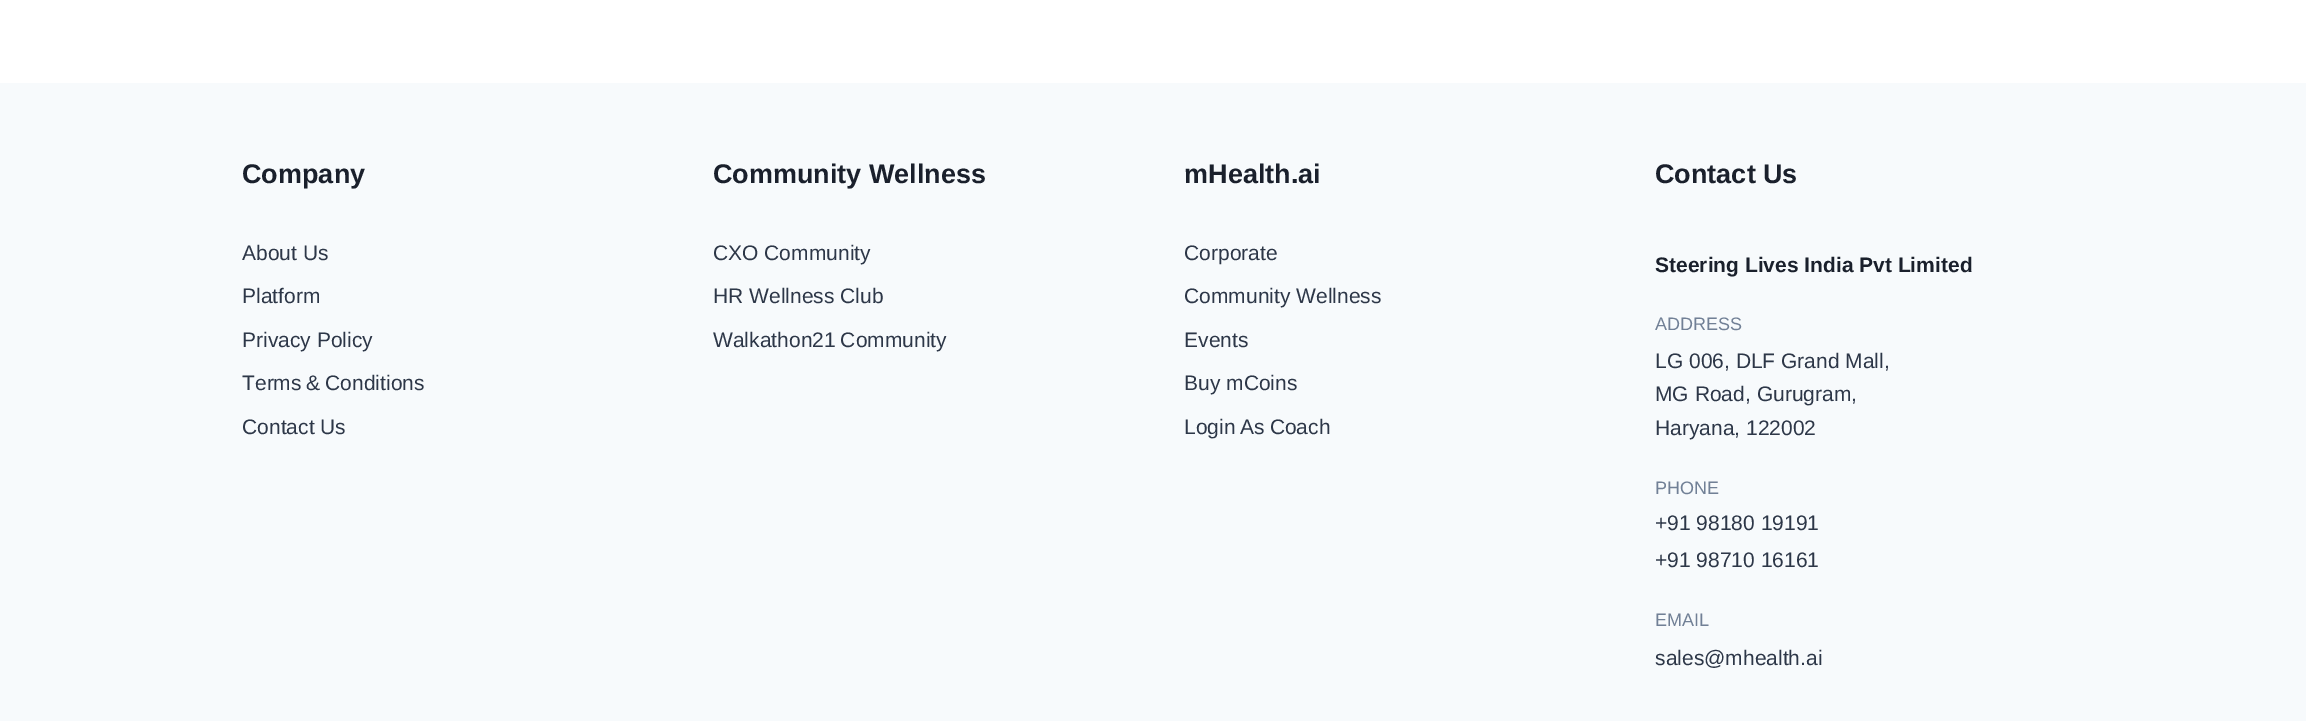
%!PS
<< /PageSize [2306 721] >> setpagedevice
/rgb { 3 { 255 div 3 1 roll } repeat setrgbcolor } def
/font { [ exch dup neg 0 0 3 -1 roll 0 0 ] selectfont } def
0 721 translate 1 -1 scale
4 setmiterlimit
255 255 255 rgb
0 0 2306 721 rectfill
247 250 252 rgb
0 83 2306 638 rectfill
/LiberationSans-Bold 27 font
26 32 44 rgb
242 183 moveto (Company) show
/LiberationSans-Regular 21 font
45 55 72 rgb
[
  [(About Us) 242 260]
  [(Platform) 242 303]
  [(Privacy Policy) 242 347]
] { aload pop moveto show } forall
242 390 moveto -1 0 32 (Terms & Conditions) widthshow
242 434 moveto (Contact Us) show
/LiberationSans-Bold 27 font
26 32 44 rgb
713 183 moveto (Community Wellness) show
/LiberationSans-Regular 21 font
45 55 72 rgb
713 260 moveto (CXO Community) show
713 303 moveto (HR Wellness Club) show
713 347 moveto -1 0 32 (Walkathon21 Community) widthshow
/LiberationSans-Bold 27 font
26 32 44 rgb
1184 183 moveto (mHealth.ai) show
/LiberationSans-Regular 21 font
45 55 72 rgb
[
  [(Corporate) 1184 260]
  [(Community Wellness) 1184 303]
  [(Events) 1184 347]
  [(Buy mCoins) 1184 390]
] { aload pop moveto show } forall
1184 434 moveto -1 0 32 (Login As Coach) widthshow
/LiberationSans-Bold 27 font
26 32 44 rgb
1655 183 moveto (Contact Us) show
/LiberationSans-Bold 21 font
1655 272 moveto (Steering Lives India Pvt Limited) show
/LiberationSans-Regular 18 font
113 128 150 rgb
1655 330 moveto (ADDRESS) show
/LiberationSans-Regular 21 font
45 55 72 rgb
[
  [(LG 006, DLF Grand Mall,) 1655 368]
  [(MG Road, Gurugram,) 1655 401]
  [(Haryana, 122002) 1655 435]
] { aload pop moveto show } forall
/LiberationSans-Regular 18 font
113 128 150 rgb
1655 494 moveto (PHONE) show
/LiberationSans-Regular 21 font
45 55 72 rgb
1655 530 moveto (+91 98180 19191) show
1655 567 moveto (+91 98710 16161) show
/LiberationSans-Regular 18 font
113 128 150 rgb
1655 626 moveto (EMAIL) show
/LiberationSans-Regular 21 font
45 55 72 rgb
1655 665 moveto (sales@mhealth.ai) show
showpage
